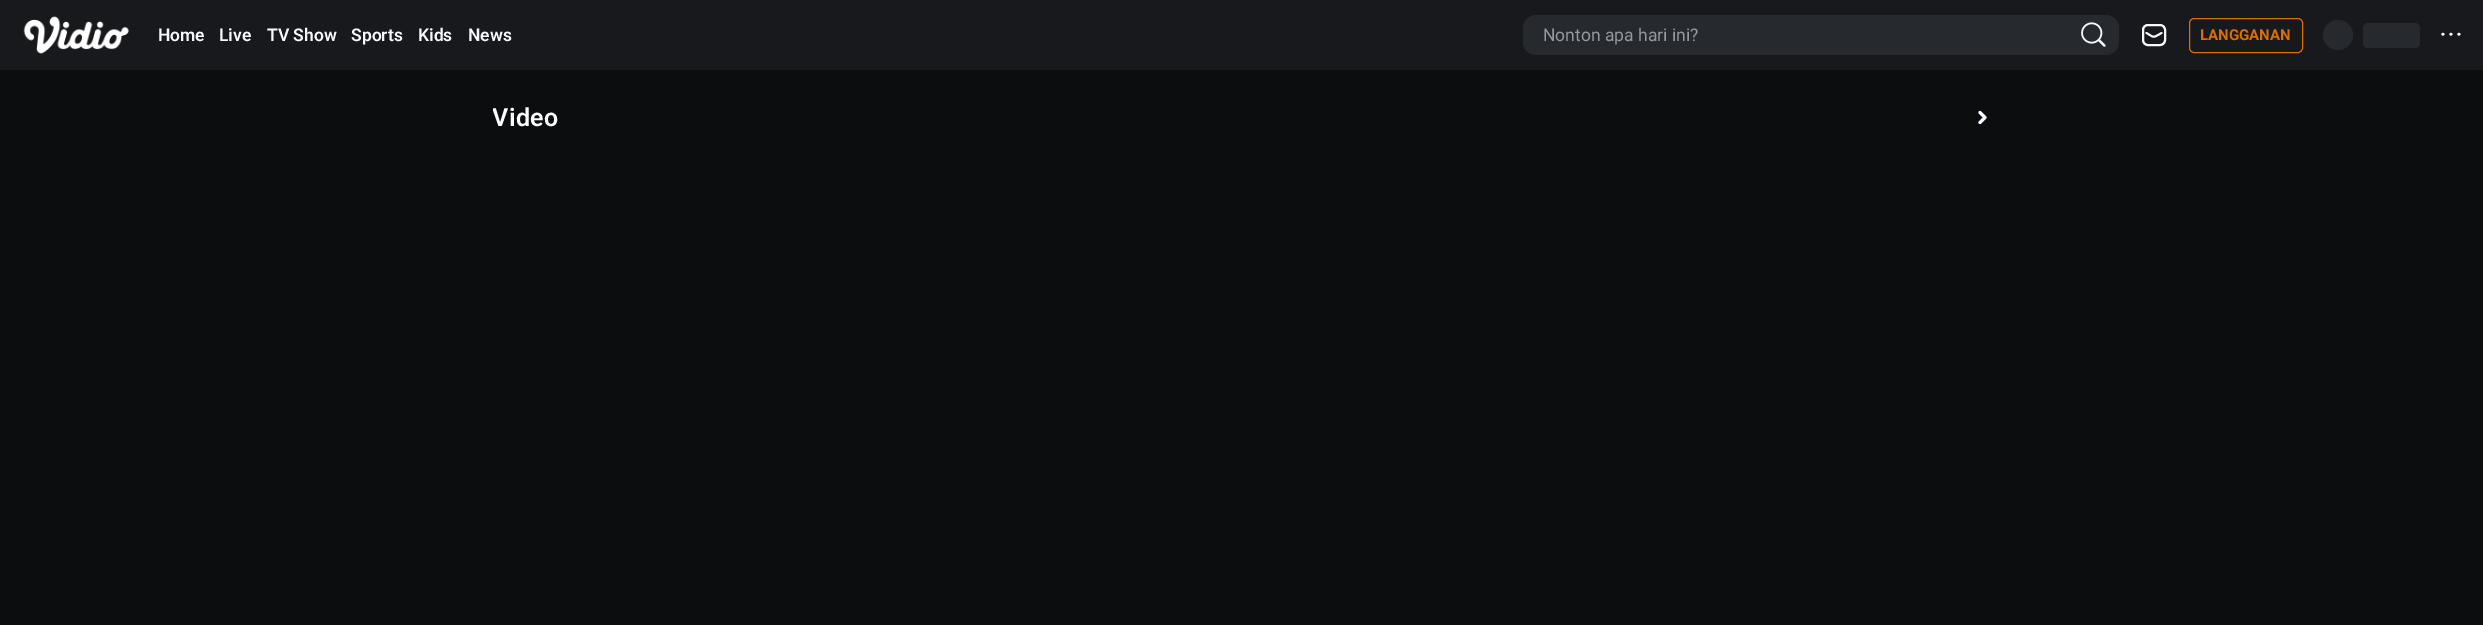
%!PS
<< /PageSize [2483 625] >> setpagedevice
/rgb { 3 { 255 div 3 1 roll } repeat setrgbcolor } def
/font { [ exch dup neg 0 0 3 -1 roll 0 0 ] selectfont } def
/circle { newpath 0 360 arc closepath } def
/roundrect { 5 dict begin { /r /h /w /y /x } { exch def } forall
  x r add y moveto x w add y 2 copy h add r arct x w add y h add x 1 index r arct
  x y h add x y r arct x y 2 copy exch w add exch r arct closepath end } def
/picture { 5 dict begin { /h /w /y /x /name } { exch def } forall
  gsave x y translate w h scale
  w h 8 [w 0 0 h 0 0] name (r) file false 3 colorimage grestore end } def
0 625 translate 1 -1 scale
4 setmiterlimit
12 13 15 rgb
0 0 2483 625 rectfill
24 25 28 rgb
0 0 2483 70 rectfill
(img/1.rgb) 23 16 106 38 picture
38 41 46 rgb
1523 15 596 40 13 roundrect fill
(img/2.rgb) 2081 22 25 25 picture
245 248 255 rgb
2 setlinewidth
2143 25 22 20 5 roundrect stroke
1.9 setlinewidth
1 setlinecap
2146.5 33 moveto 2155 38 2152.5 38 2161.5 33 curveto stroke
219 110 0 rgb
1 setlinewidth
0 setlinecap
2189.5 18.5 113 34 4.5 roundrect stroke
38 41 46 rgb
2338 35 15 circle fill
2363 23 57 25 5 roundrect fill
245 248 255 rgb
3.1 setlinewidth
1 setlinecap
1 setlinejoin
1980 112.5 moveto 1985 117.5 lineto 1980 122.5 lineto stroke
/Roboto-SemiBold 17.5 font
[
  [(Home) 158 41]
  [(Live) 219 41]
  [(TV Show) 267 41]
  [(Sports) 351 41]
  [(Kids) 418 41]
  [(News) 468 41]
] { aload pop moveto show } forall
/Roboto-Regular 17.5 font
148 152 161 rgb
1543 41 moveto (Nonton apa hari ini?) show
/Roboto-Bold 15 font
219 110 0 rgb
2200 40 moveto (LANGGANAN) show
/Roboto-Bold 20 font
245 248 255 rgb
2440 41 moveto 2 0 (···) ashow
gsave
493 100 1500 35 rectclip
/Roboto-SemiBold 25 font
255 255 255 rgb
492 126 moveto 0.5 0 (Video) ashow
grestore
showpage
